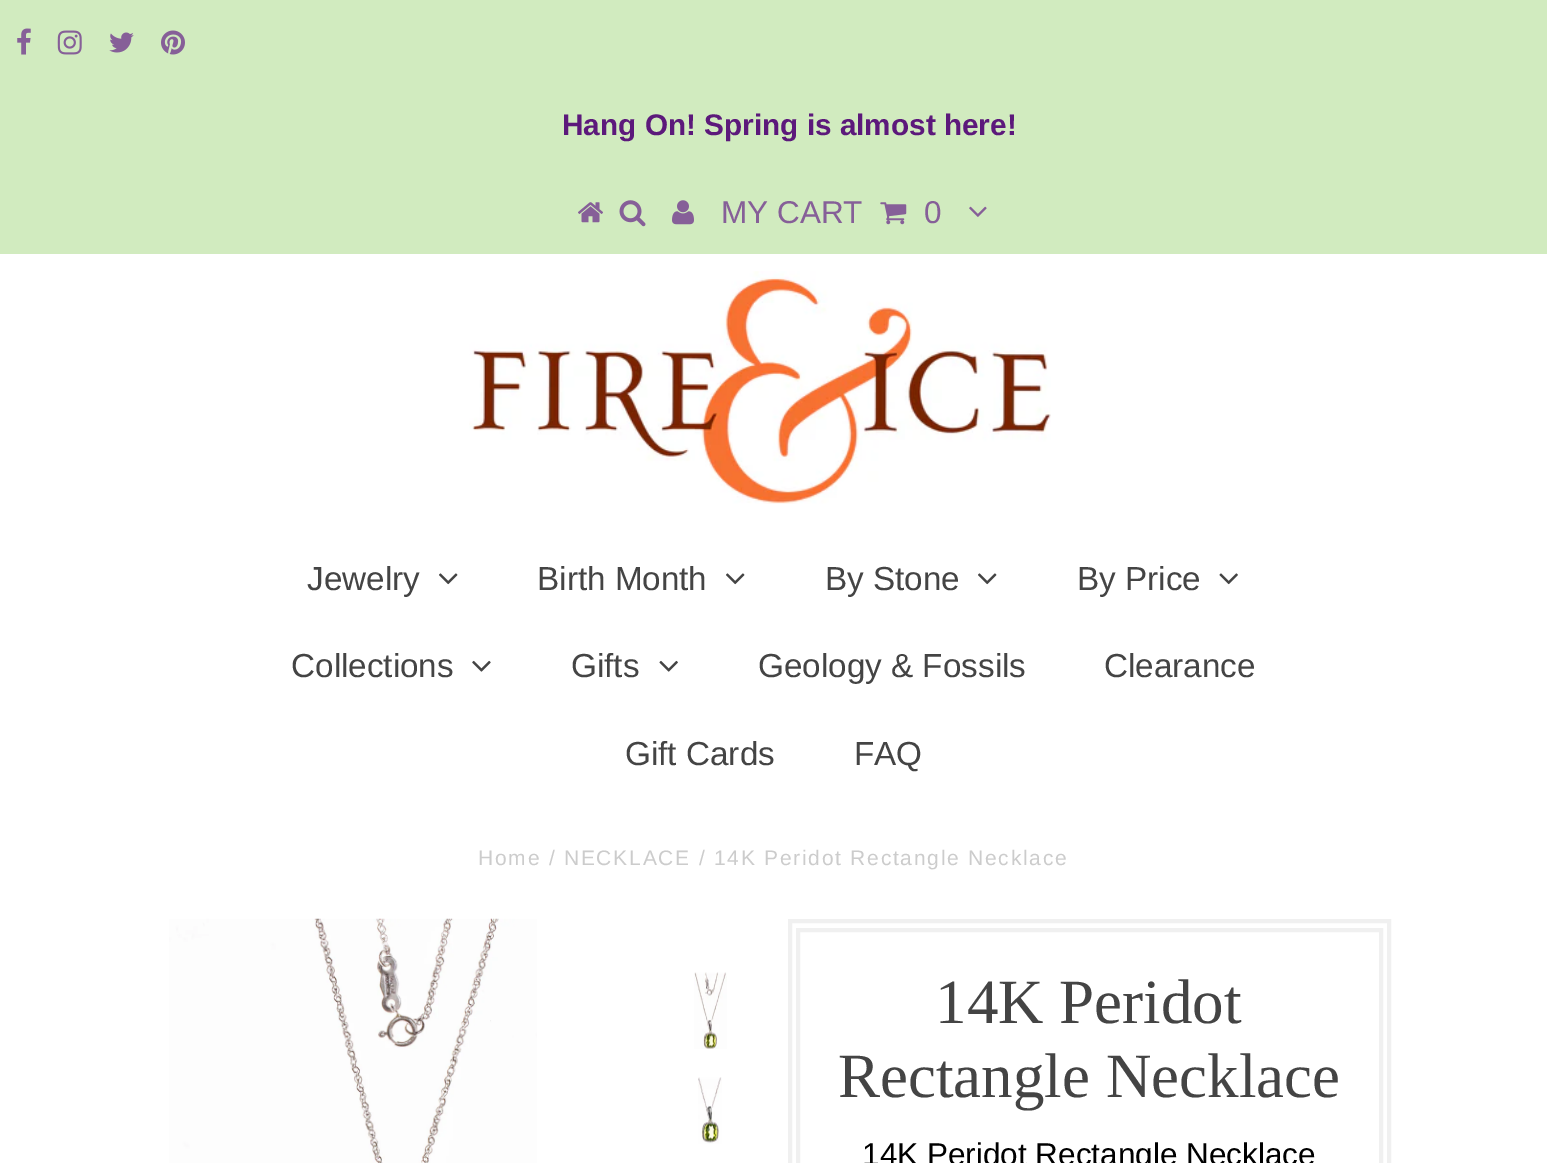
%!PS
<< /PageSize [1547 1163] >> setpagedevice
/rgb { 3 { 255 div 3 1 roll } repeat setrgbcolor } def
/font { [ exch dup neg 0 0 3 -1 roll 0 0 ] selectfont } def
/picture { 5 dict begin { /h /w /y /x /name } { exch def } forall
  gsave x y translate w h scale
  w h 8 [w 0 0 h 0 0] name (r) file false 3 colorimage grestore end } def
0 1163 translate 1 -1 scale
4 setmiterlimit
255 255 255 rgb
0 0 1547 1163 rectfill
209 235 191 rgb
0 0 1547 254 rectfill
(img/1.rgb) 17 28 14 27 picture
(img/2.rgb) 57 30 25 25 picture
(img/3.rgb) 109 32 25 21 picture
(img/4.rgb) 161 30 24 25 picture
(img/5.rgb) 578 202 25 21 picture
(img/6.rgb) 619 200 27 27 picture
(img/7.rgb) 672 200 22 25 picture
(img/8.rgb) 880 202 27 23 picture
(img/9.rgb) 969 206 18 11 picture
(img/10.rgb) 469 271 582 233 picture
(img/11.rgb) 439 573 19 12 picture
(img/11.rgb) 726 573 19 12 picture
(img/11.rgb) 978 573 19 12 picture
(img/12.rgb) 1219 573 19 12 picture
(img/13.rgb) 472 660 19 12 picture
(img/14.rgb) 659 660 19 12 picture
(img/15.rgb) 169 918 368 245 picture
(img/16.rgb) 694 972 33 77 picture
(img/17.rgb) 698 1077 24 67 picture
240 240 240 rgb
4 setlinewidth
790 921 599 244 rectstroke
798 930 583 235 rectstroke
/LiberationSans-Bold 29.75 font
92 25 123 rgb
562 135 moveto (Hang On! Spring is almost here!) show
/LiberationSans-Regular 31.5 font
134 95 152 rgb
721 223 moveto (MY CART) show
924 223 moveto (0) show
/LiberationSans-Regular 33.25 font
68 68 68 rgb
[
  [(Jewelry) 307 590]
  [(Birth Month) 537 590]
  [(By Stone) 825 590]
  [(By Price) 1077 590]
  [(Collections) 291 677]
  [(Gifts) 571 677]
  [(Geology & Fossils) 758 677]
  [(Clearance) 1104 677]
  [(Gift Cards) 625 765]
  [(FAQ) 854 765]
] { aload pop moveto show } forall
/LiberationSans-Regular 21 font
204 204 204 rgb
478 865 moveto 1.75 0 (Home / NECKLACE / 14K Peridot Rectangle Necklace) ashow
/LiberationSerif-Regular 63 font
68 68 68 rgb
935 1023 moveto (14K Peridot) show
838 1097 moveto (Rectangle Necklace) show
/LiberationSans-Regular 31.5 font
0 0 0 rgb
862 1165 moveto (14K Peridot Rectangle Necklace) show
showpage
